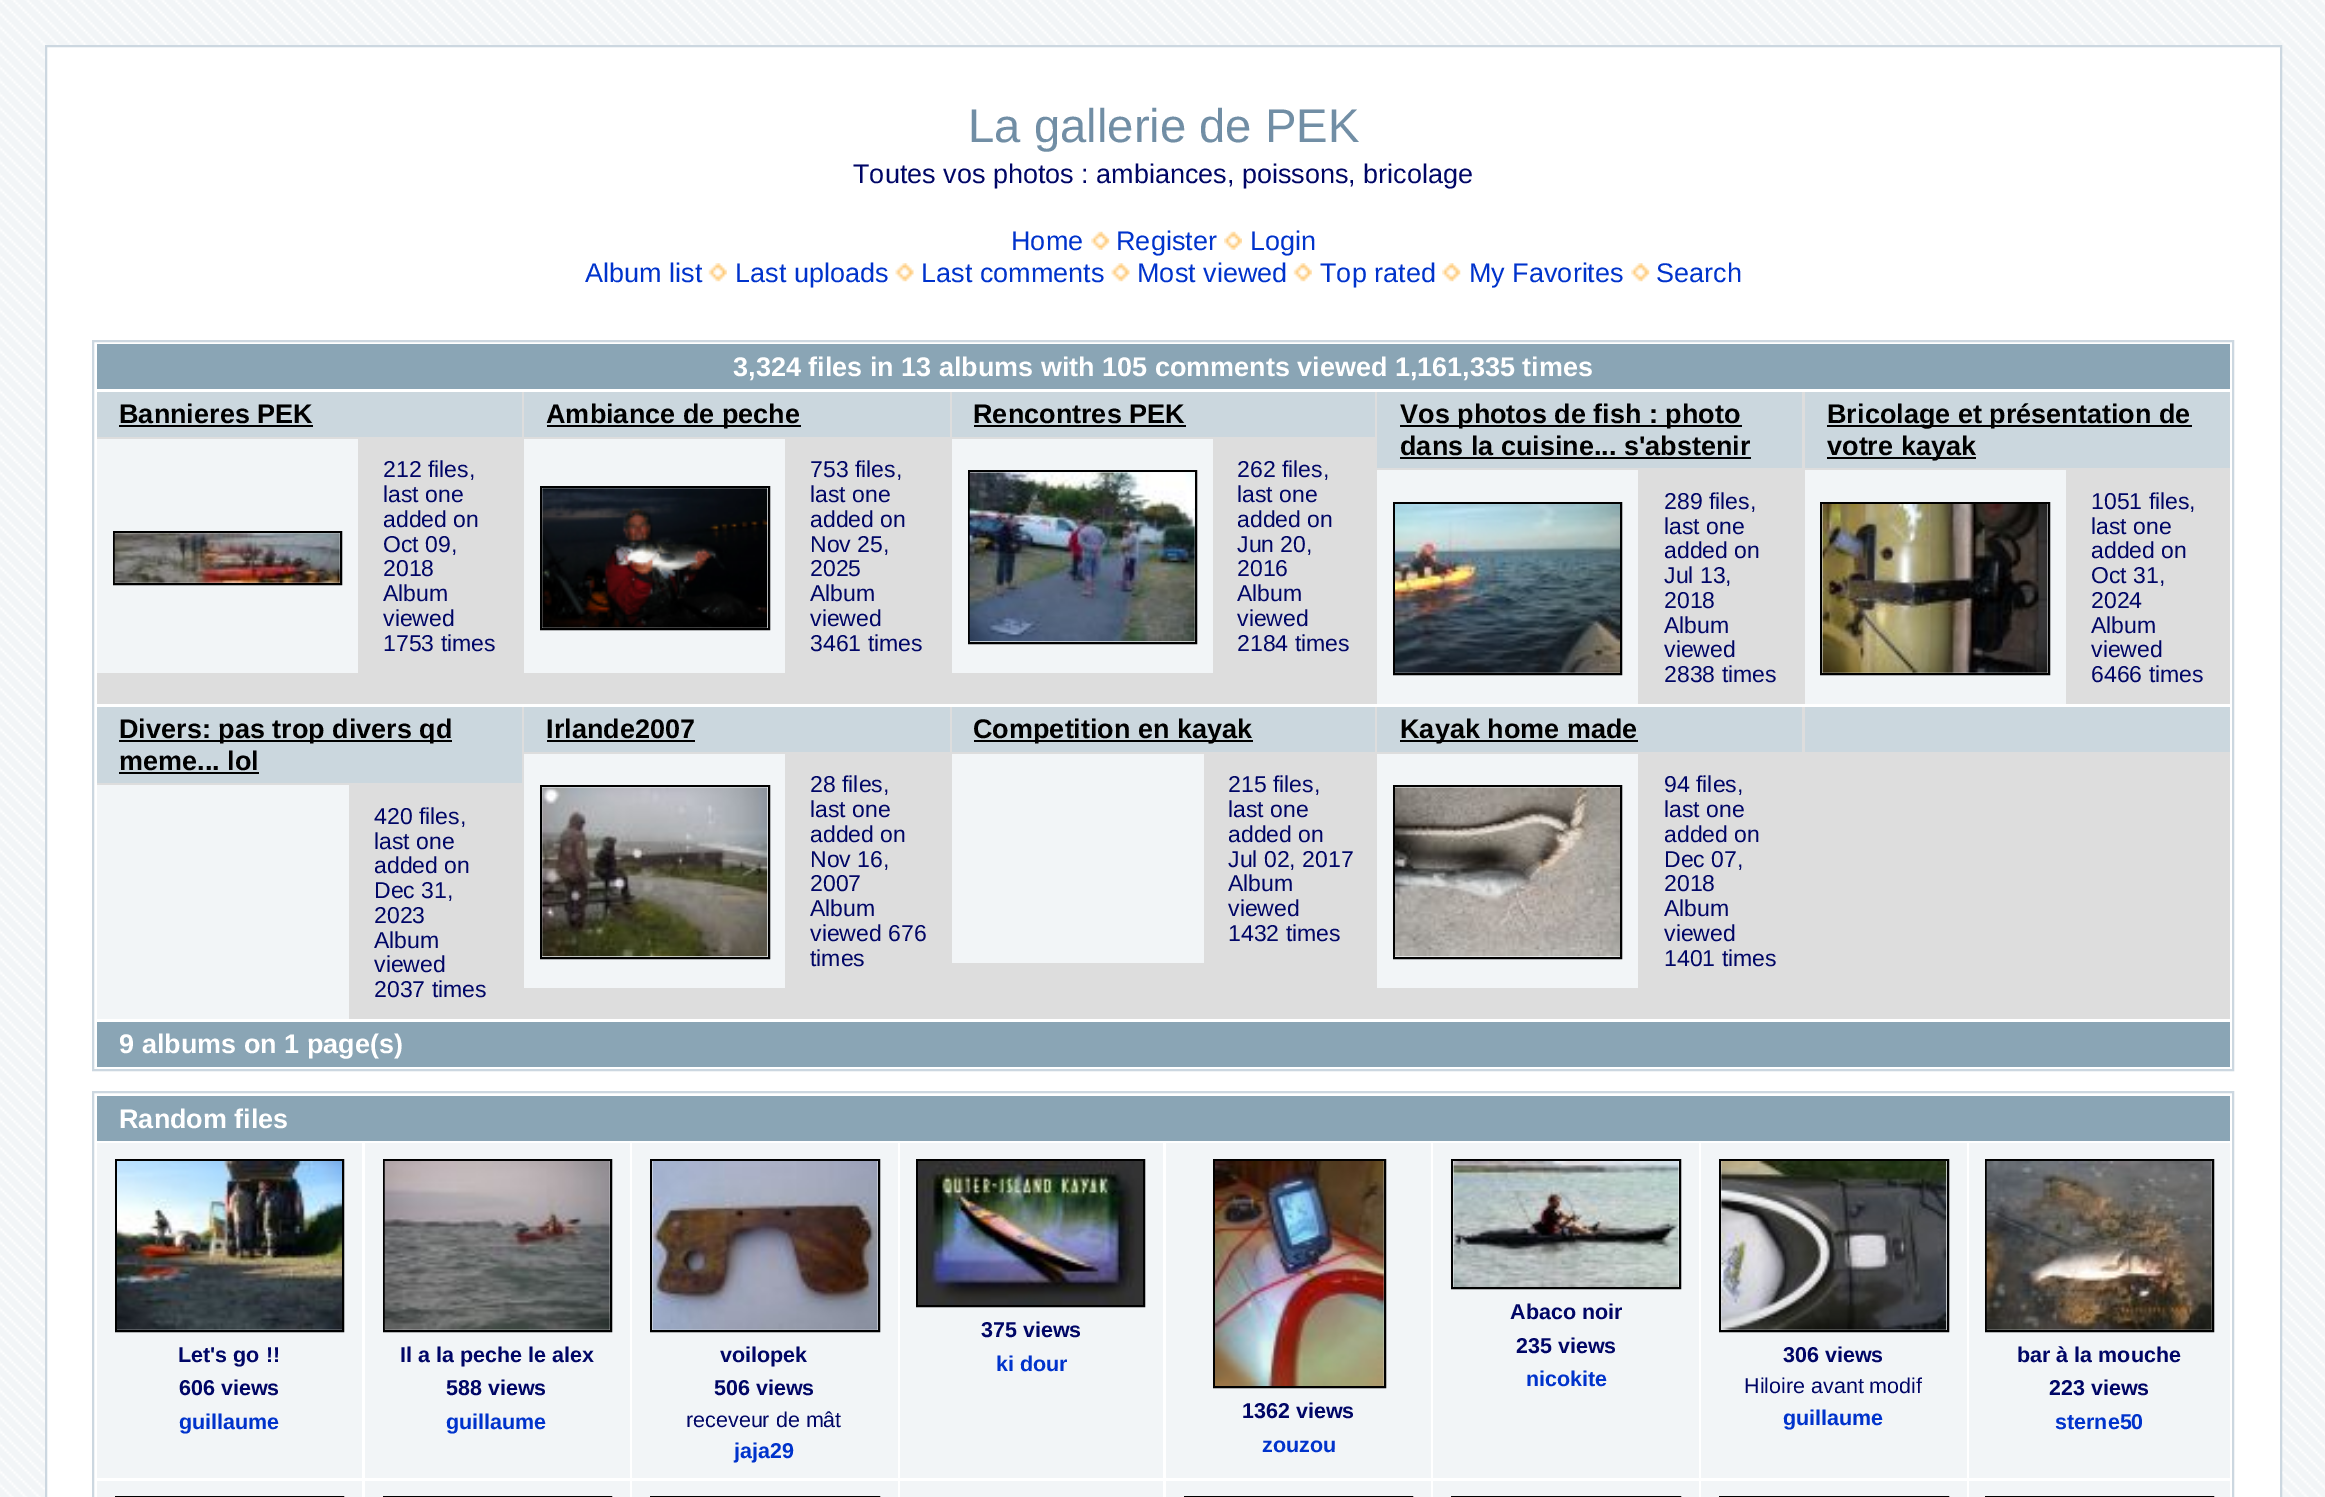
%!PS
<< /PageSize [2325 1497] >> setpagedevice
/rgb { 3 { 255 div 3 1 roll } repeat setrgbcolor } def
/font { [ exch dup neg 0 0 3 -1 roll 0 0 ] selectfont } def
/picture { 5 dict begin { /h /w /y /x /name } { exch def } forall
  gsave x y translate w h scale
  w h 8 [w 0 0 h 0 0] name (r) file false 3 colorimage grestore end } def
0 1497 translate 1 -1 scale
4 setmiterlimit
242 245 247 rgb
0 0 2325 1497 rectfill
(img/1.rgb) 0 0 2325 1497 picture
255 255 255 rgb
46 46 moveto 2281 46 lineto 2281 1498 lineto 46 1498 lineto closepath gsave fill grestore
204 215 224 rgb
2 setlinewidth
stroke
(img/2.rgb) 1091 231 19 19 picture
(img/3.rgb) 1224 231 18 19 picture
(img/4.rgb) 708 263 19 19 picture
(img/5.rgb) 895 263 19 19 picture
(img/6.rgb) 1111 263 19 19 picture
(img/4.rgb) 1293 263 19 19 picture
(img/7.rgb) 1442 263 19 19 picture
(img/8.rgb) 1631 263 19 19 picture
93 341 2140 729 rectstroke
[
  [97 344 2133 45 138 165 181]
  [97 392 2133 312 221 221 221]
  [97 392 425 45 203 215 222]
  [119 425 194 2 0 0 0]
  [97 439 261 234 242 245 247]
] { aload pop rgb rectfill } forall
0 0 0 rgb
114 532 227 52 rectstroke
(img/9.rgb) 114 533 226 50 picture
[
  [524 392 426 45 203 215 222]
  [547 425 254 2 0 0 0]
  [524 439 261 234 242 245 247]
] { aload pop rgb rectfill } forall
0 0 0 rgb
541 487 228 142 rectstroke
(img/10.rgb) 542 488 226 140 picture
[
  [952 392 423 45 203 215 222]
  [974 425 212 2 0 0 0]
  [952 439 261 234 242 245 247]
] { aload pop rgb rectfill } forall
0 0 0 rgb
969 471 227 172 rectstroke
(img/11.rgb) 969 472 226 170 picture
[
  [1377 392 425 76 203 215 222]
  [1400 425 342 2 0 0 0]
  [1400 457 351 2 0 0 0]
  [1377 470 261 234 242 245 247]
] { aload pop rgb rectfill } forall
0 0 0 rgb
1394 503 227 171 rectstroke
(img/12.rgb) 1395 504 225 169 picture
[
  [1805 392 425 76 203 215 222]
  [1827 425 365 2 0 0 0]
  [1827 457 149 2 0 0 0]
  [1805 470 261 234 242 245 247]
] { aload pop rgb rectfill } forall
0 0 0 rgb
1821 503 228 171 rectstroke
(img/13.rgb) 1822 504 226 169 picture
[
  [97 707 2133 312 221 221 221]
  [97 707 425 76 203 215 222]
  [119 740 333 2 0 0 0]
  [119 772 140 2 0 0 0]
  [97 785 252 234 242 245 247]
  [524 707 426 45 203 215 222]
  [547 740 148 2 0 0 0]
  [524 754 261 234 242 245 247]
] { aload pop rgb rectfill } forall
0 0 0 rgb
541 786 228 172 rectstroke
(img/14.rgb) 542 787 226 170 picture
[
  [952 707 423 45 203 215 222]
  [974 740 279 2 0 0 0]
  [952 754 252 209 242 245 247]
  [1377 707 425 45 203 215 222]
  [1400 740 238 2 0 0 0]
  [1377 754 261 234 242 245 247]
] { aload pop rgb rectfill } forall
0 0 0 rgb
1394 786 227 172 rectstroke
(img/15.rgb) 1395 787 225 170 picture
203 215 222 rgb
1805 707 425 45 rectfill
138 165 181 rgb
97 1022 2133 45 rectfill
204 215 224 rgb
93 1092 2140 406 rectstroke
138 165 181 rgb
97 1096 2133 45 rectfill
242 245 247 rgb
97 1143 265 335 rectfill
0 0 0 rgb
116 1160 227 171 rectstroke
(img/16.rgb) 117 1161 225 169 picture
242 245 247 rgb
365 1143 265 335 rectfill
0 0 0 rgb
384 1160 227 171 rectstroke
(img/17.rgb) 384 1161 226 169 picture
242 245 247 rgb
632 1143 266 335 rectfill
0 0 0 rgb
651 1160 228 171 rectstroke
(img/18.rgb) 652 1161 226 169 picture
242 245 247 rgb
900 1143 263 335 rectfill
0 0 0 rgb
917 1160 227 146 rectstroke
(img/19.rgb) 918 1161 225 144 picture
242 245 247 rgb
1166 1143 265 335 rectfill
0 0 0 rgb
1214 1160 171 227 rectstroke
(img/20.rgb) 1215 1161 169 225 picture
242 245 247 rgb
1433 1143 266 335 rectfill
0 0 0 rgb
1452 1160 228 128 rectstroke
(img/21.rgb) 1453 1161 226 126 picture
242 245 247 rgb
1701 1143 266 335 rectfill
0 0 0 rgb
1720 1160 228 171 rectstroke
(img/22.rgb) 1721 1161 226 169 picture
242 245 247 rgb
1969 1143 261 335 rectfill
0 0 0 rgb
1986 1160 227 171 rectstroke
(img/23.rgb) 1986 1161 226 169 picture
242 245 247 rgb
97 1481 265 16 rectfill
0 0 0 rgb
116 1497 227 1 rectstroke
242 245 247 rgb
365 1481 265 16 rectfill
0 0 0 rgb
384 1497 227 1 rectstroke
242 245 247 rgb
632 1481 266 16 rectfill
0 0 0 rgb
651 1497 228 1 rectstroke
242 245 247 rgb
900 1481 263 16 rectfill
1166 1481 265 16 rectfill
0 0 0 rgb
1185 1497 227 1 rectstroke
242 245 247 rgb
1433 1481 266 16 rectfill
0 0 0 rgb
1452 1497 228 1 rectstroke
242 245 247 rgb
1701 1481 266 16 rectfill
0 0 0 rgb
1720 1497 228 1 rectstroke
242 245 247 rgb
1969 1481 261 16 rectfill
0 0 0 rgb
1986 1497 227 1 rectstroke
/LiberationSans-Regular 47.25 font
113 142 165 rgb
968 142 moveto (La gallerie de PEK) show
/LiberationSans-Regular 27 font
0 6 102 rgb
853 183 moveto (Toutes vos photos : ambiances, poissons, bricolage) show
0 51 204 rgb
[
  [(Home) 1011 250]
  [(Register) 1116 250]
  [(Login) 1250 250]
  [(Album list) 585 282]
  [(Last uploads) 735 282]
  [(Last comments) 921 282]
  [(Most viewed) 1137 282]
  [(Top rated) 1320 282]
  [(My Favorites) 1469 282]
  [(Search) 1656 282]
] { aload pop moveto show } forall
/LiberationSans-Bold 27 font
255 255 255 rgb
733 376 moveto (3,324 files in 13 albums with 105 comments viewed 1,161,335 times) show
0 0 0 rgb
119 423 moveto (Bannieres PEK) show
/LiberationSans-Regular 23 font
0 6 102 rgb
[
  [(212 files,) 383 477]
  [(last one) 383 502]
  [(added on) 383 527]
  [(Oct 09,) 383 552]
  [(2018) 383 576]
  [(Album) 383 601]
  [(viewed) 383 626]
  [(1753 times) 383 651]
] { aload pop moveto show } forall
/LiberationSans-Bold 27 font
0 0 0 rgb
546 423 moveto (Ambiance de peche) show
/LiberationSans-Regular 23 font
0 6 102 rgb
[
  [(753 files,) 810 477]
  [(last one) 810 502]
  [(added on) 810 527]
  [(Nov 25,) 810 552]
  [(2025) 810 576]
  [(Album) 810 601]
  [(viewed) 810 626]
  [(3461 times) 810 651]
] { aload pop moveto show } forall
/LiberationSans-Bold 27 font
0 0 0 rgb
973 423 moveto (Rencontres PEK) show
/LiberationSans-Regular 23 font
0 6 102 rgb
[
  [(262 files,) 1237 477]
  [(last one) 1237 502]
  [(added on) 1237 527]
  [(Jun 20,) 1237 552]
  [(2016) 1237 576]
  [(Album) 1237 601]
  [(viewed) 1237 626]
  [(2184 times) 1237 651]
] { aload pop moveto show } forall
/LiberationSans-Bold 27 font
0 0 0 rgb
1400 423 moveto (Vos photos de fish : photo) show
1400 455 moveto (dans la cuisine... s'abstenir) show
/LiberationSans-Regular 23 font
0 6 102 rgb
[
  [(289 files,) 1664 509]
  [(last one) 1664 534]
  [(added on) 1664 558]
  [(Jul 13,) 1664 583]
  [(2018) 1664 608]
  [(Album) 1664 633]
  [(viewed) 1664 657]
  [(2838 times) 1664 682]
] { aload pop moveto show } forall
/LiberationSans-Bold 27 font
0 0 0 rgb
1827 423 moveto (Bricolage et présentation de) show
1827 455 moveto (votre kayak) show
/LiberationSans-Regular 23 font
0 6 102 rgb
[
  [(1051 files,) 2091 509]
  [(last one) 2091 534]
  [(added on) 2091 558]
  [(Oct 31,) 2091 583]
  [(2024) 2091 608]
  [(Album) 2091 633]
  [(viewed) 2091 657]
  [(6466 times) 2091 682]
] { aload pop moveto show } forall
/LiberationSans-Bold 27 font
0 0 0 rgb
119 738 moveto (Divers: pas trop divers qd) show
119 770 moveto (meme... lol) show
/LiberationSans-Regular 23 font
0 6 102 rgb
[
  [(420 files,) 374 824]
  [(last one) 374 849]
  [(added on) 374 873]
  [(Dec 31,) 374 898]
  [(2023) 374 923]
  [(Album) 374 948]
  [(viewed) 374 972]
  [(2037 times) 374 997]
] { aload pop moveto show } forall
/LiberationSans-Bold 27 font
0 0 0 rgb
546 738 moveto (Irlande2007) show
/LiberationSans-Regular 23 font
0 6 102 rgb
[
  [(28 files,) 810 792]
  [(last one) 810 817]
  [(added on) 810 842]
  [(Nov 16,) 810 867]
  [(2007) 810 891]
  [(Album) 810 916]
  [(viewed 676) 810 941]
  [(times) 810 966]
] { aload pop moveto show } forall
/LiberationSans-Bold 27 font
0 0 0 rgb
973 738 moveto (Competition en kayak) show
/LiberationSans-Regular 23 font
0 6 102 rgb
[
  [(215 files,) 1228 792]
  [(last one) 1228 817]
  [(added on) 1228 842]
  [(Jul 02, 2017) 1228 867]
  [(Album) 1228 891]
  [(viewed) 1228 916]
  [(1432 times) 1228 941]
] { aload pop moveto show } forall
/LiberationSans-Bold 27 font
0 0 0 rgb
1400 738 moveto (Kayak home made) show
/LiberationSans-Regular 23 font
0 6 102 rgb
[
  [(94 files,) 1664 792]
  [(last one) 1664 817]
  [(added on) 1664 842]
  [(Dec 07,) 1664 867]
  [(2018) 1664 891]
  [(Album) 1664 916]
  [(viewed) 1664 941]
  [(1401 times) 1664 966]
] { aload pop moveto show } forall
/LiberationSans-Bold 27 font
255 255 255 rgb
119 1053 moveto (9 albums on 1 page\(s\)) show
119 1128 moveto (Random files) show
/LiberationSans-Bold 21.5 font
0 6 102 rgb
178 1362 moveto (Let's go !!) show
179 1395 moveto (606 views) show
0 51 204 rgb
179 1429 moveto (guillaume) show
0 6 102 rgb
400 1362 moveto (Il a la peche le alex) show
446 1395 moveto (588 views) show
0 51 204 rgb
446 1429 moveto (guillaume) show
0 6 102 rgb
720 1362 moveto (voilopek) show
714 1395 moveto (506 views) show
/LiberationSans-Regular 21.5 font
686 1427 moveto (receveur de mât) show
/LiberationSans-Bold 21.5 font
0 51 204 rgb
734 1458 moveto (jaja29) show
0 6 102 rgb
981 1337 moveto (375 views) show
0 51 204 rgb
996 1371 moveto (ki dour) show
0 6 102 rgb
1242 1418 moveto (1362 views) show
0 51 204 rgb
1262 1452 moveto (zouzou) show
0 6 102 rgb
1510 1319 moveto (Abaco noir) show
1516 1353 moveto (235 views) show
0 51 204 rgb
1526 1386 moveto (nicokite) show
0 6 102 rgb
1783 1362 moveto (306 views) show
/LiberationSans-Regular 21.5 font
1744 1393 moveto (Hiloire avant modif) show
/LiberationSans-Bold 21.5 font
0 51 204 rgb
1783 1425 moveto (guillaume) show
0 6 102 rgb
2017 1362 moveto (bar à la mouche) show
2049 1395 moveto (223 views) show
0 51 204 rgb
2055 1429 moveto (sterne50) show
showpage
